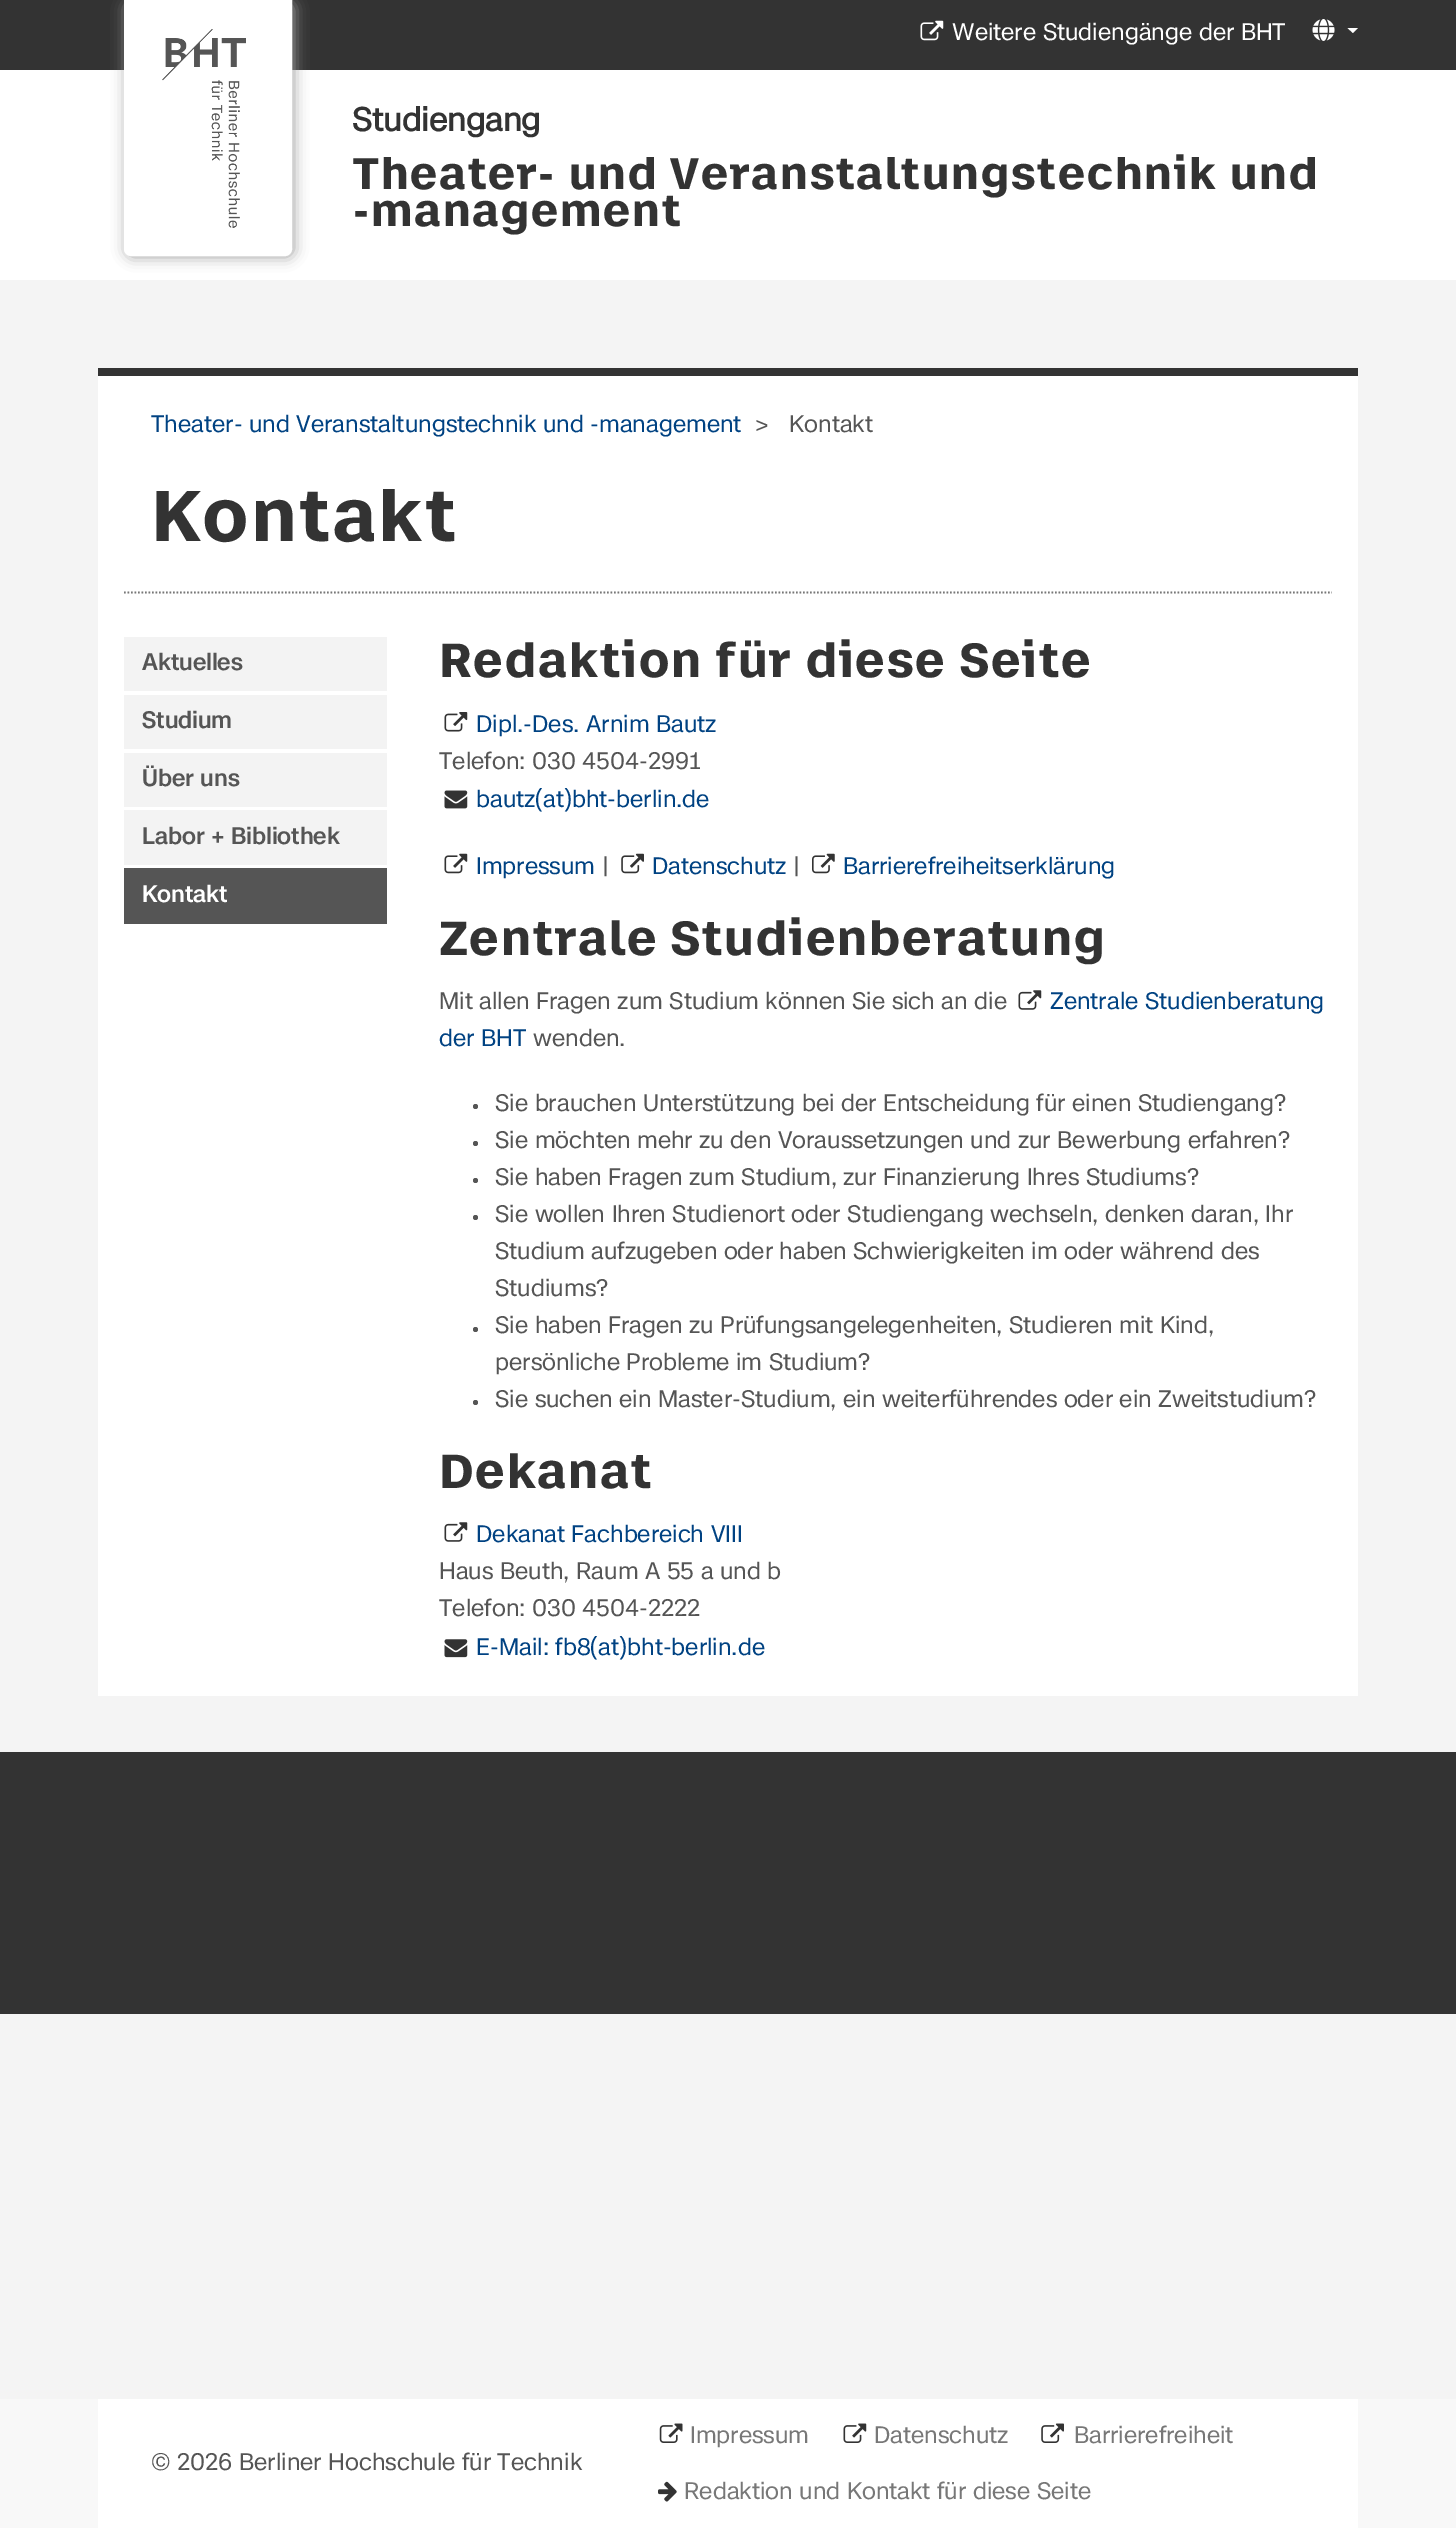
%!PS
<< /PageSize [1456 2528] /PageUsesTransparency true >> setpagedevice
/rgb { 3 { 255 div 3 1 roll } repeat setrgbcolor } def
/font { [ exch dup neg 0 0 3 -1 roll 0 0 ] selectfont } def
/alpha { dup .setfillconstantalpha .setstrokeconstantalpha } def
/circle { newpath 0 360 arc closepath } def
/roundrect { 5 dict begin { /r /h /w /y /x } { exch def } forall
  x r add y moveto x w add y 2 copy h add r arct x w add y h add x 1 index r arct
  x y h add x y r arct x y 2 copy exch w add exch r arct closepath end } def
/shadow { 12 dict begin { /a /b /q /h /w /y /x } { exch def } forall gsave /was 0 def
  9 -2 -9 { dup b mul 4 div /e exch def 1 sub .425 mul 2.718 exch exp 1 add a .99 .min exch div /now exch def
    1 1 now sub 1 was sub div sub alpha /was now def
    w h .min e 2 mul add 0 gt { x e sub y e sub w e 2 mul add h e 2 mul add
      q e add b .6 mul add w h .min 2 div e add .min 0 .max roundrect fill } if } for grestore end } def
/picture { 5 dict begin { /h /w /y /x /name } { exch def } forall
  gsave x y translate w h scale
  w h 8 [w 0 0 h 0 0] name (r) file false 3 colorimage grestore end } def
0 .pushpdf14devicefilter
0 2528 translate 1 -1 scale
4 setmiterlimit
244 244 244 rgb
0 0 1456 2528 rectfill
51 51 51 rgb
0 0 1456 70 rectfill
255 255 255 rgb
0 70 1456 210 rectfill
160 160 160 rgb
126 2 168 255 7 7 1 shadow
255 255 255 rgb
125 1 moveto 291 1 lineto 291 249 lineto 291 252.5 288.5 255 285 255 curveto 131 255 lineto 127.5 255 125 252.5 125 249 curveto closepath gsave fill grestore
2 setlinewidth
stroke
(img/1.rgb) 162 29 84 199 picture
(img/2.rgb) 920 20 24 21 picture
(img/3.rgb) 1312 19 23 22 picture
1347.5 28 moveto 1358 28 lineto 1353 33 lineto closepath fill
98 376 1260 1320 rectfill
51 51 51 rgb
98 368 1260 8 rectfill
119 119 119 rgb
1.8 setlinewidth
[1.75 1.75] 0 setdash
124 592.5 moveto 1332 592.5 lineto stroke
[
  [124 637 263 54 243 243 243]
  [124 695 263 54 243 243 243]
  [124 753 263 54 243 243 243]
  [124 810 263 55 243 243 243]
  [124 868 263 56 85 85 85]
] { aload pop rgb rectfill } forall
(img/4.rgb) 444 712 24 20 picture
(img/5.rgb) 444 790 24 19 picture
(img/6.rgb) 444 853 24 21 picture
(img/7.rgb) 621 853 23 21 picture
(img/8.rgb) 812 853 23 21 picture
(img/9.rgb) 1018 990 24 20 picture
475.5 1106.5 2.5 circle fill
475.5 1143.5 2.5 circle fill
475.5 1180.5 2.5 circle fill
475.5 1217.5 2.5 circle fill
475.5 1329.5 2.5 circle fill
475.5 1402.5 2.5 circle fill
(img/9.rgb) 444 1522 24 20 picture
(img/10.rgb) 444 1639 24 19 picture
[
  [0 1752 1456 262 51 51 51]
  [0 2399 1456 129 248 248 248]
  [98 2399 1260 129 255 255 255]
] { aload pop rgb rectfill } forall
(img/11.rgb) 659 2423 24 20 picture
(img/12.rgb) 843 2423 24 20 picture
(img/13.rgb) 1041 2423 23 20 picture
(img/14.rgb) 658 2481 19 21 picture
/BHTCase-Regular 22.75 font
952 40 moveto (Weitere Studiengänge der BHT) show
/BHTCase-Bold 31.5 font
51 51 51 rgb
352 131 moveto (Studiengang) show
/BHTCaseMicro-Bold 42 font
352 189 moveto (Theater- und Veranstaltungstechnik und) show
352 226 moveto (-management) show
/BHTCase-Regular 22.75 font
0 66 130 rgb
151 432 moveto (Theater- und Veranstaltungstechnik und -management) show
85 85 85 rgb
755 432 moveto (>) show
789 432 moveto (Kontakt) show
/BHTCaseMicro-Bold 68.25 font
51 51 51 rgb
151 541 moveto (Kontakt) show
/BHTCase-Medium 22.75 font
85 85 85 rgb
[
  [(Aktuelles) 142 670]
  [(Studium) 142 728]
  [(Über uns) 142 786]
  [(Labor + Bibliothek) 142 844]
] { aload pop moveto show } forall
255 255 255 rgb
142 902 moveto (Kontakt) show
/BHTCaseMicro-Bold 45.5 font
51 51 51 rgb
439 677 moveto (Redaktion für diese Seite) show
/BHTCase-Regular 22.75 font
0 66 130 rgb
476 732 moveto (Dipl.-Des. Arnim Bautz) show
85 85 85 rgb
439 769 moveto (Telefon: 030 4504-2991) show
0 66 130 rgb
476 807 moveto (bautz\(at\)bht-berlin.de) show
476 874 moveto (Impressum) show
85 85 85 rgb
602 874 moveto (|) show
0 66 130 rgb
652 874 moveto (Datenschutz) show
85 85 85 rgb
793 874 moveto (|) show
0 66 130 rgb
843 874 moveto (Barrierefreiheitserklärung) show
/BHTCaseMicro-Bold 45.5 font
51 51 51 rgb
439 955 moveto (Zentrale Studienberatung) show
/BHTCase-Regular 22.75 font
0 66 130 rgb
1050 1009 moveto (Zentrale Studienberatung) show
439 1046 moveto (der BHT) show
85 85 85 rgb
[
  [(Mit allen Fragen zum Studium können Sie sich an die) 439 1009]
  [(wenden.) 533 1046]
  [(Sie brauchen Unterstützung bei der Entscheidung für einen Studiengang?) 495 1111]
  [(Sie möchten mehr zu den Voraussetzungen und zur Bewerbung erfahren?) 495 1148]
  [(Sie haben Fragen zum Studium, zur Finanzierung Ihres Studiums?) 495 1185]
  [(Sie wollen Ihren Studienort oder Studiengang wechseln, denken daran, Ihr) 495 1222]
  [(Studium aufzugeben oder haben Schwierigkeiten im oder während des) 495 1259]
  [(Studiums?) 495 1296]
  [(Sie haben Fragen zu Prüfungsangelegenheiten, Studieren mit Kind,) 495 1333]
  [(persönliche Probleme im Studium?) 495 1370]
  [(Sie suchen ein Master-Studium, ein weiterführendes oder ein Zweitstudium?) 495 1407]
] { aload pop moveto show } forall
/BHTCaseMicro-Bold 45.5 font
51 51 51 rgb
439 1488 moveto (Dekanat) show
/BHTCase-Regular 22.75 font
0 66 130 rgb
476 1542 moveto (Dekanat Fachbereich VIII) show
85 85 85 rgb
439 1579 moveto (Haus Beuth, Raum A 55 a und b) show
439 1616 moveto (Telefon: 030 4504-2222) show
0 66 130 rgb
476 1655 moveto (E-Mail: fb8\(at\)bht-berlin.de) show
85 85 85 rgb
151 2470 moveto (© 2026 Berliner Hochschule für Technik) show
119 119 119 rgb
[
  [(Impressum) 690 2443]
  [(Datenschutz) 874 2443]
  [(Barrierefreiheit) 1074 2443]
  [(Redaktion und Kontakt für diese Seite) 684 2499]
] { aload pop moveto show } forall
.poppdf14devicefilter showpage
